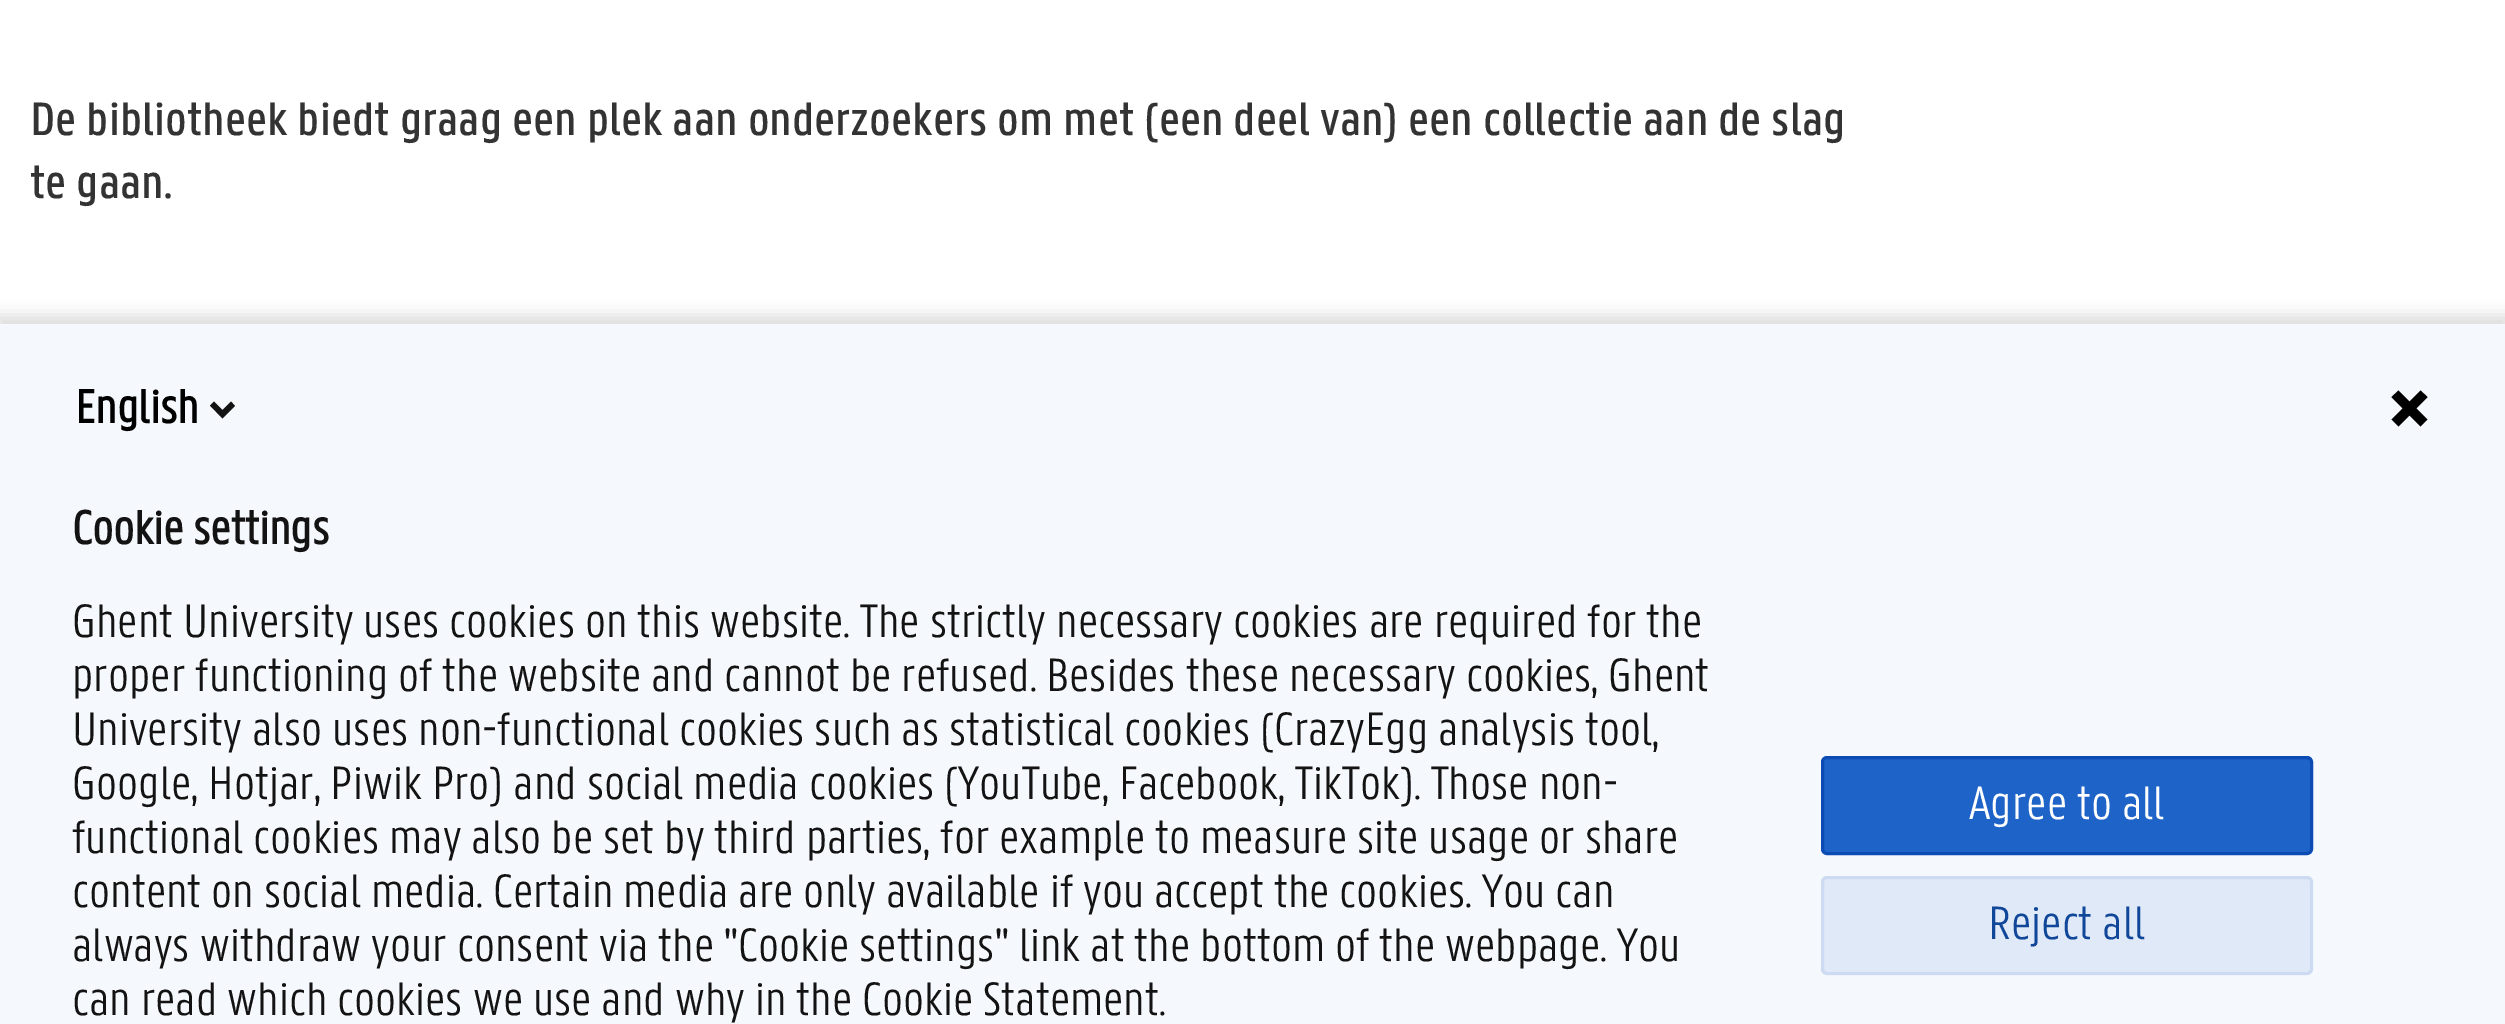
%!PS
<< /PageSize [2505 1024] /PageUsesTransparency true >> setpagedevice
/rgb { 3 { 255 div 3 1 roll } repeat setrgbcolor } def
/font { [ exch dup neg 0 0 3 -1 roll 0 0 ] selectfont } def
/alpha { dup .setfillconstantalpha .setstrokeconstantalpha } def
/roundrect { 5 dict begin { /r /h /w /y /x } { exch def } forall
  x r add y moveto x w add y 2 copy h add r arct x w add y h add x 1 index r arct
  x y h add x y r arct x y 2 copy exch w add exch r arct closepath end } def
/shadow { 12 dict begin { /a /b /q /h /w /y /x } { exch def } forall gsave /was 0 def
  9 -2 -9 { dup b mul 4 div /e exch def 1 sub .425 mul 2.718 exch exp 1 add a .99 .min exch div /now exch def
    1 1 now sub 1 was sub div sub alpha /was now def
    w h .min e 2 mul add 0 gt { x e sub y e sub w e 2 mul add h e 2 mul add
      q e add b .6 mul add w h .min 2 div e add .min 0 .max roundrect fill } if } for grestore end } def
0 .pushpdf14devicefilter
0 1024 translate 1 -1 scale
4 setmiterlimit
255 255 255 rgb
0 0 2505 1024 rectfill
0 0 0 rgb
-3 315 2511 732 0 7.5 0.14 shadow
245 248 252 rgb
0 324 2505 700 rectfill
19 19 19 rgb
222.5 410 moveto 231 401.5 lineto 235 406 lineto 222.5 418.5 lineto 210 405.5 lineto 214 401.5 lineto closepath fill
0 0 0 rgb
2391.5 397 moveto 2398.5 390.5 lineto 2427.5 419.5 lineto 2420.5 426.5 lineto 2391.5 397 lineto fill
2420.5 390.5 moveto 2427.5 397 lineto 2398.5 426.5 lineto 2391.5 419.5 lineto 2420.5 390.5 lineto fill
30 100 200 rgb
1822.5 757.5 489 96 4.5 roundrect gsave fill grestore
11 75 179 rgb
3 setlinewidth
stroke
224 233 247 rgb
1821 876 492 99 6 roundrect fill
0.1 alpha
30 100 200 rgb
1822.5 877.5 489 96 4.5 roundrect stroke
/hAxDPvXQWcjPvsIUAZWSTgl-Medium 51 font
1 alpha
51 51 51 rgb
30 135 moveto (De bibliotheek biedt graag een plek aan onderzoekers om met \(een deel van\) een collectie aan de slag) show
30 198 moveto (te gaan.) show
/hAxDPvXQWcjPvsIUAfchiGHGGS-Bold 51 font
0 0 0 rgb
75 423 moveto (English) show
19 19 19 rgb
72 544 moveto (Cookie settings) show
/hAxDPvXQWcjPvsIUAfchiGHGGS-Light 51 font
[
  [(Ghent University uses cookies on this website. The strictly necessary cookies are required for the) 72 637]
  [(proper functioning of the website and cannot be refused. Besides these necessary cookies, Ghent) 72 691]
  [(University also uses non-functional cookies such as statistical cookies \(CrazyEgg analysis tool,) 72 745]
  [(Google, Hotjar, Piwik Pro\) and social media cookies \(YouTube, Facebook, TikTok\). Those non-) 72 799]
  [(functional cookies may also be set by third parties, for example to measure site usage or share) 72 853]
  [(content on social media. Certain media are only available if you accept the cookies. You can) 72 907]
  [(always withdraw your consent via the "Cookie settings" link at the bottom of the webpage. You) 72 961]
  [(can read which cookies we use and why in the Cookie Statement.) 72 1015]
] { aload pop moveto show } forall
255 255 255 rgb
1969 819 moveto (Agree to all) show
17 71 153 rgb
1988 939 moveto (Reject all) show
.poppdf14devicefilter showpage
